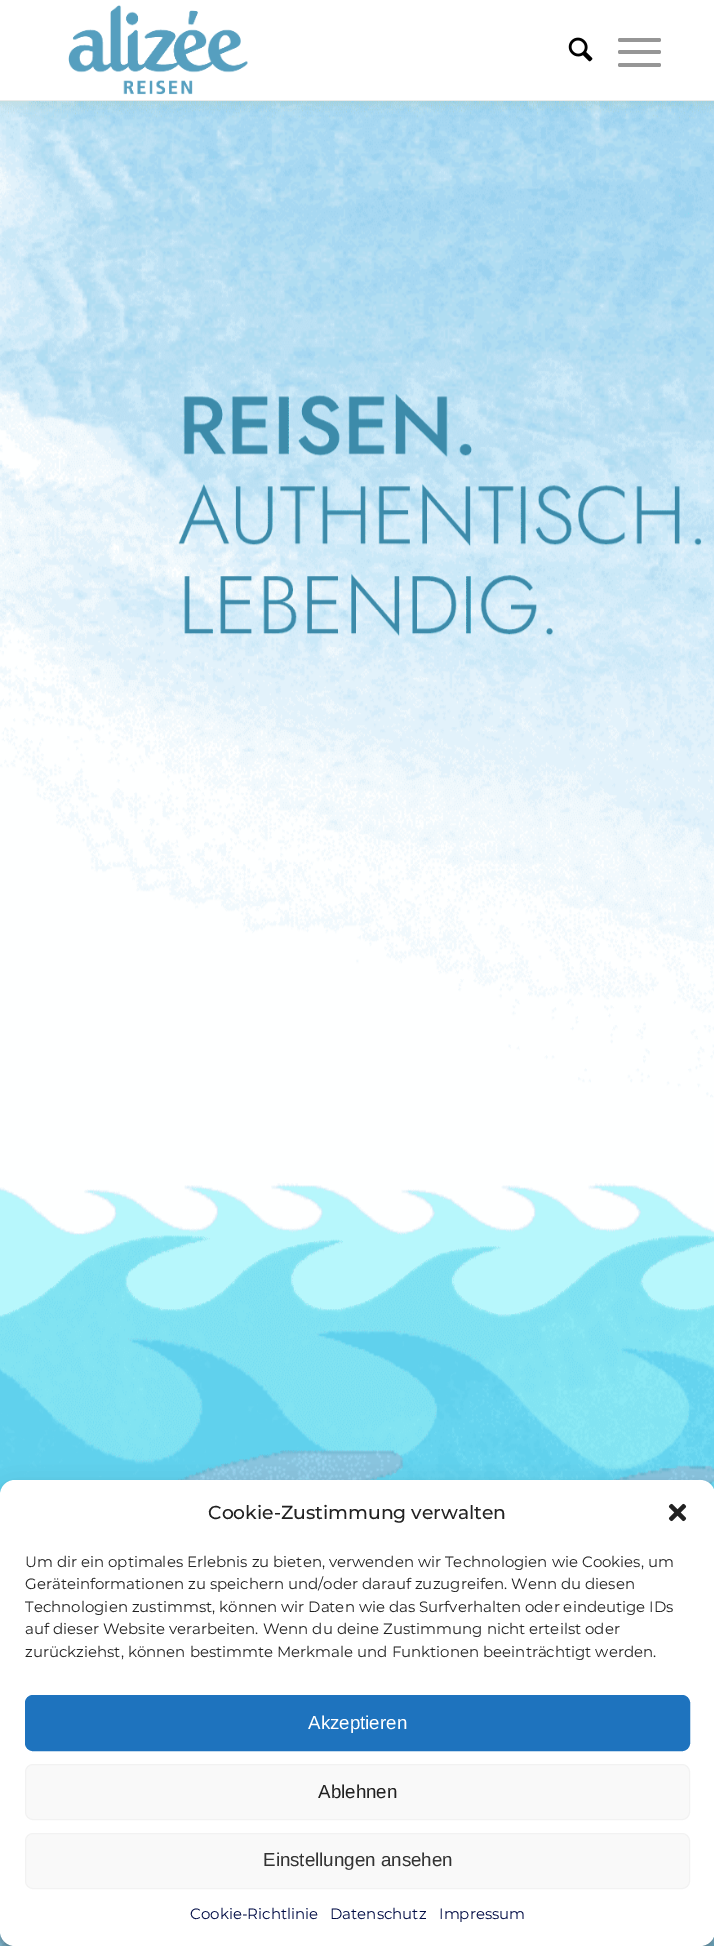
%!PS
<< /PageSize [714 1946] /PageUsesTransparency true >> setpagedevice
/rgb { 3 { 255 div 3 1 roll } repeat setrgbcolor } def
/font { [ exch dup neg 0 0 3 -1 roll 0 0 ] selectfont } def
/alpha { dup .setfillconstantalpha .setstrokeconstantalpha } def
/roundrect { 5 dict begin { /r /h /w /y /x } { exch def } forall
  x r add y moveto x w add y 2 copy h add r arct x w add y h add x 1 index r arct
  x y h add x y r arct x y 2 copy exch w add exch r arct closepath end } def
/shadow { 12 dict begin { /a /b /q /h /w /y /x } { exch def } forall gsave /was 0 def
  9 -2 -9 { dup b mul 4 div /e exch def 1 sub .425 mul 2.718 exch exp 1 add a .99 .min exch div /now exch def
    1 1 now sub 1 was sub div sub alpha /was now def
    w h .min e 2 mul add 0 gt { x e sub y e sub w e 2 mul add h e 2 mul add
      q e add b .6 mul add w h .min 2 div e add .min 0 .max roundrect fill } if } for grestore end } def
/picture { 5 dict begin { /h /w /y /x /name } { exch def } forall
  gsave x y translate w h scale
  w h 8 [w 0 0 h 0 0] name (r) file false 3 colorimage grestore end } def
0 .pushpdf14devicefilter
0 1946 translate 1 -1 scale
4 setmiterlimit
255 255 255 rgb
0 0 714 1946 rectfill
235 235 235 rgb
0 100 714 1 rectfill
(img/1.rgb) 68 5 180 90 picture
(img/2.rgb) 568 37 25 25 picture
150 150 150 rgb
618 50 43 4 2 roundrect fill
618 38 43 4 2 roundrect fill
618 63 43 4 2 roundrect fill
(img/3.rgb) 0 101 714 1845 picture
0 0 0 rgb
0 1488 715 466 15 4 0.23 shadow
0 1493 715 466 15 12.5 0.19 shadow
255 255 255 rgb
0 1480 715 466 15 roundrect fill
(img/4.rgb) 668 1503 19 19 picture
30 115 190 rgb
25.5 1695.5 664 55 7.5 roundrect gsave fill grestore
stroke
249 249 249 rgb
25.5 1764.5 664 55 7.5 roundrect gsave fill grestore
242 242 242 rgb
stroke
249 249 249 rgb
25.5 1833.5 664 55 7.5 roundrect gsave fill grestore
242 242 242 rgb
stroke
/Montserrat-Medium 18.75 font
34 34 34 rgb
208 1519 moveto (Cookie-Zustimmung verwalten) show
/Montserrat-Regular 15 font
[
  [(Um dir ein optimales Erlebnis zu bieten, verwenden wir Technologien wie Cookies, um) 25 1567]
  [(Geräteinformationen zu speichern und/oder darauf zuzugreifen. Wenn du diesen) 25 1589]
  [(Technologien zustimmst, können wir Daten wie das Surfverhalten oder eindeutige IDs) 25 1612]
  [(auf dieser Website verarbeiten. Wenn du deine Zustimmung nicht erteilst oder) 25 1634]
  [(zurückziehst, können bestimmte Merkmale und Funktionen beeinträchtigt werden.) 25 1657]
] { aload pop moveto show } forall
/LiberationSans-Regular 18.75 font
255 255 255 rgb
308 1729 moveto (Akzeptieren) show
34 34 34 rgb
318 1798 moveto (Ablehnen) show
51 51 51 rgb
263 1866 moveto (Einstellungen ansehen) show
/Montserrat-Regular 15 font
0 11 68 rgb
[
  [(Cookie-Richtlinie) 190 1919]
  [(Datenschutz) 330 1919]
  [(Impressum) 439 1919]
] { aload pop moveto show } forall
.poppdf14devicefilter showpage
